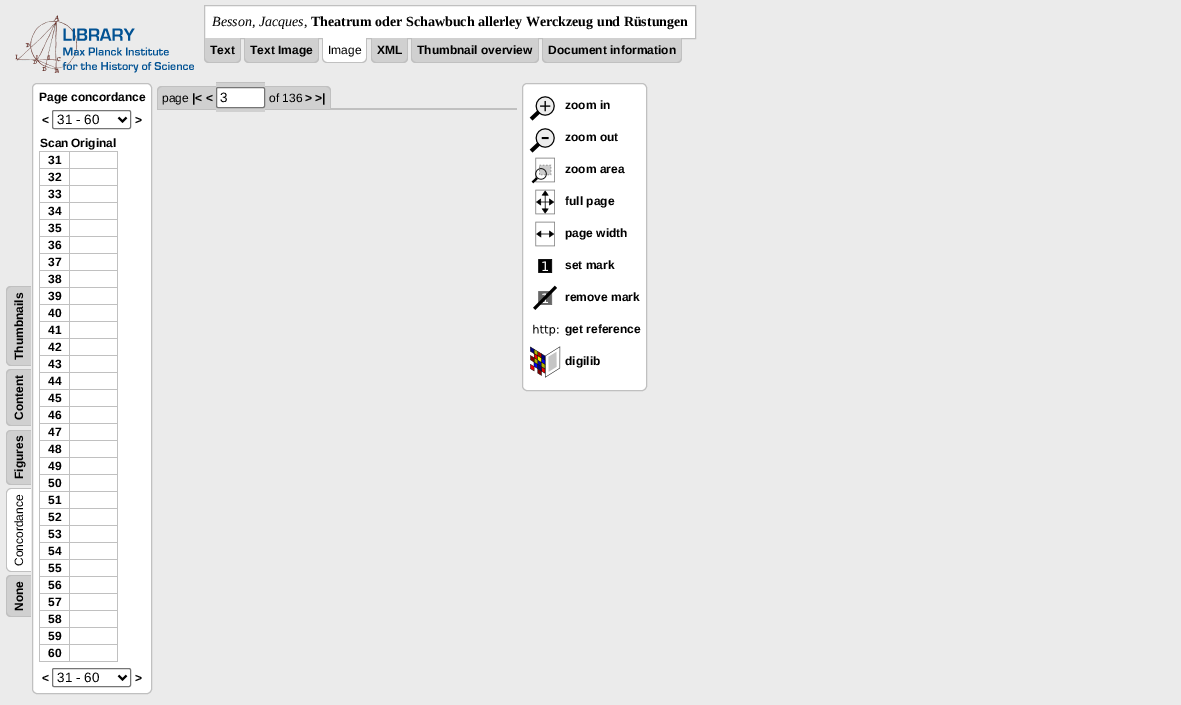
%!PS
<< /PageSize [1181 705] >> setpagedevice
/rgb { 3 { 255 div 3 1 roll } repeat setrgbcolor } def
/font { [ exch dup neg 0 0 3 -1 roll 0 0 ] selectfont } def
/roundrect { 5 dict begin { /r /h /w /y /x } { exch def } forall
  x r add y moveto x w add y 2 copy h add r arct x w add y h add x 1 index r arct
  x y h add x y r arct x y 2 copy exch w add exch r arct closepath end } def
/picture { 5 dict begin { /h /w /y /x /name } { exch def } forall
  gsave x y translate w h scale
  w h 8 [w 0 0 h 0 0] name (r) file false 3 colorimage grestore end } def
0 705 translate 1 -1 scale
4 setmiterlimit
235 235 235 rgb
0 0 1181 705 rectfill
(img/1.rgb) 15 15 179 58 picture
255 255 255 rgb
204.5 5.5 moveto 695.5 5.5 lineto 695.5 38.5 lineto 204.5 38.5 lineto closepath gsave fill grestore
192 192 192 rgb
stroke
208 208 208 rgb
204 38 moveto 241 38 lineto 241 58 lineto 241 61 239 63 236 63 curveto 209 63 lineto 206 63 204 61 204 58 curveto closepath fill
192 192 192 rgb
204 38 moveto 241 38 lineto 241 58 lineto 241 61 239 63 236 63 curveto 209 63 lineto 206 63 204 61 204 58 curveto closepath 205 38 moveto 240 38 lineto 240 58 lineto 240 60 238 62 236 62 curveto 209 62 lineto 207 62 205 60 205 58 curveto closepath eofill
208 208 208 rgb
244 38 moveto 319 38 lineto 319 58 lineto 319 61 317 63 314 63 curveto 249 63 lineto 246 63 244 61 244 58 curveto closepath fill
192 192 192 rgb
244 38 moveto 319 38 lineto 319 58 lineto 319 61 317 63 314 63 curveto 249 63 lineto 246 63 244 61 244 58 curveto closepath 245 38 moveto 318 38 lineto 318 58 lineto 318 60 316 62 314 62 curveto 249 62 lineto 247 62 245 60 245 58 curveto closepath eofill
255 255 255 rgb
322 38 moveto 367 38 lineto 367 58 lineto 367 61 365 63 362 63 curveto 327 63 lineto 324 63 322 61 322 58 curveto closepath fill
192 192 192 rgb
322 38 moveto 367 38 lineto 367 58 lineto 367 61 365 63 362 63 curveto 327 63 lineto 324 63 322 61 322 58 curveto closepath 323 38 moveto 366 38 lineto 366 58 lineto 366 60 364 62 362 62 curveto 327 62 lineto 325 62 323 60 323 58 curveto closepath eofill
208 208 208 rgb
371 38 moveto 408 38 lineto 408 58 lineto 408 61 406 63 403 63 curveto 376 63 lineto 373 63 371 61 371 58 curveto closepath fill
192 192 192 rgb
371 38 moveto 408 38 lineto 408 58 lineto 408 61 406 63 403 63 curveto 376 63 lineto 373 63 371 61 371 58 curveto closepath 372 38 moveto 407 38 lineto 407 58 lineto 407 60 405 62 403 62 curveto 376 62 lineto 374 62 372 60 372 58 curveto closepath eofill
208 208 208 rgb
411 38 moveto 539 38 lineto 539 58 lineto 539 61 537 63 534 63 curveto 416 63 lineto 413 63 411 61 411 58 curveto closepath fill
192 192 192 rgb
411 38 moveto 539 38 lineto 539 58 lineto 539 61 537 63 534 63 curveto 416 63 lineto 413 63 411 61 411 58 curveto closepath 412 38 moveto 538 38 lineto 538 58 lineto 538 60 536 62 534 62 curveto 416 62 lineto 414 62 412 60 412 58 curveto closepath eofill
208 208 208 rgb
542 38 moveto 682 38 lineto 682 58 lineto 682 61 680 63 677 63 curveto 547 63 lineto 544 63 542 61 542 58 curveto closepath fill
192 192 192 rgb
542 38 moveto 682 38 lineto 682 58 lineto 682 61 680 63 677 63 curveto 547 63 lineto 544 63 542 61 542 58 curveto closepath 543 38 moveto 681 38 lineto 681 58 lineto 681 60 679 62 677 62 curveto 547 62 lineto 545 62 543 60 543 58 curveto closepath eofill
208 208 208 rgb
6 361 moveto 6 291 lineto 6 288 8 286 11 286 curveto 31 286 lineto 31 366 lineto 11 366 lineto 8 366 6 363 6 361 curveto closepath fill
192 192 192 rgb
6 361 moveto 6 291 lineto 6 288 8 286 11 286 curveto 31 286 lineto 31 366 lineto 11 366 lineto 8 366 6 363 6 361 curveto closepath 7 361 moveto 7 291 lineto 7 289 9 287 11 287 curveto 31 287 lineto 31 365 lineto 11 365 lineto 9 365 7 363 7 361 curveto closepath eofill
208 208 208 rgb
6 421 moveto 6 374 lineto 6 371 8 369 11 369 curveto 31 369 lineto 31 426 lineto 11 426 lineto 8 426 6 424 6 421 curveto closepath fill
192 192 192 rgb
6 421 moveto 6 374 lineto 6 371 8 369 11 369 curveto 31 369 lineto 31 426 lineto 11 426 lineto 8 426 6 424 6 421 curveto closepath 7 421 moveto 7 374 lineto 7 372 9 370 11 370 curveto 31 370 lineto 31 425 lineto 11 425 lineto 9 425 7 423 7 421 curveto closepath eofill
208 208 208 rgb
6 480 moveto 6 435 lineto 6 432 8 430 11 430 curveto 31 430 lineto 31 485 lineto 11 485 lineto 8 485 6 483 6 480 curveto closepath fill
192 192 192 rgb
6 480 moveto 6 435 lineto 6 432 8 430 11 430 curveto 31 430 lineto 31 485 lineto 11 485 lineto 8 485 6 483 6 480 curveto closepath 7 480 moveto 7 435 lineto 7 432 9 431 11 431 curveto 31 431 lineto 31 484 lineto 11 484 lineto 9 484 7 482 7 480 curveto closepath eofill
255 255 255 rgb
6 567 moveto 6 493 lineto 6 491 8 488 11 488 curveto 31 488 lineto 31 572 lineto 11 572 lineto 8 572 6 569 6 567 curveto closepath fill
192 192 192 rgb
6 567 moveto 6 493 lineto 6 491 8 488 11 488 curveto 31 488 lineto 31 572 lineto 11 572 lineto 8 572 6 569 6 567 curveto closepath 7 567 moveto 7 493 lineto 7 491 9 489 11 489 curveto 31 489 lineto 31 571 lineto 11 571 lineto 9 571 7 569 7 567 curveto closepath eofill
208 208 208 rgb
6 612 moveto 6 580 lineto 6 577 8 575 11 575 curveto 31 575 lineto 31 617 lineto 11 617 lineto 8 617 6 615 6 612 curveto closepath fill
192 192 192 rgb
6 612 moveto 6 580 lineto 6 577 8 575 11 575 curveto 31 575 lineto 31 617 lineto 11 617 lineto 8 617 6 615 6 612 curveto closepath 7 612 moveto 7 580 lineto 7 578 9 576 11 576 curveto 31 576 lineto 31 616 lineto 11 616 lineto 9 616 7 614 7 612 curveto closepath eofill
255 255 255 rgb
32.5 83.5 119 610 4.5 roundrect gsave fill grestore
192 192 192 rgb
stroke
118 118 118 rgb
52.5 110.5 78 18 1.5 roundrect stroke
0 0 0 rgb
2 setlinewidth
118.5 117.5 moveto 122.5 121.5 lineto 126.5 117.5 lineto stroke
[
  [69 151 49 1 192 192 192]
  [69 168 49 1 192 192 192]
  [69 185 49 1 192 192 192]
  [69 202 49 1 192 192 192]
  [69 219 49 1 192 192 192]
  [69 236 49 1 192 192 192]
  [69 253 49 1 192 192 192]
  [69 270 49 1 192 192 192]
  [69 287 49 1 192 192 192]
  [69 304 49 1 192 192 192]
  [69 321 49 1 192 192 192]
  [69 338 49 1 192 192 192]
  [69 355 49 1 192 192 192]
  [69 372 49 1 192 192 192]
  [69 389 49 1 192 192 192]
  [69 406 49 1 192 192 192]
  [69 423 49 1 192 192 192]
  [69 440 49 1 192 192 192]
  [69 457 49 1 192 192 192]
  [69 474 49 1 192 192 192]
  [69 491 49 1 192 192 192]
  [69 508 49 1 192 192 192]
  [69 525 49 1 192 192 192]
  [69 542 49 1 192 192 192]
  [69 559 49 1 192 192 192]
  [69 576 49 1 192 192 192]
  [69 593 49 1 192 192 192]
  [69 610 49 1 192 192 192]
  [69 627 49 1 192 192 192]
  [69 644 49 1 192 192 192]
  [117 644 1 18 192 192 192]
  [69 661 49 1 192 192 192]
  [69 644 1 18 192 192 192]
  [39 644 31 1 192 192 192]
  [69 627 1 18 192 192 192]
  [39 627 31 1 192 192 192]
  [69 610 1 18 192 192 192]
  [39 610 31 1 192 192 192]
  [69 593 1 18 192 192 192]
  [39 593 31 1 192 192 192]
  [69 576 1 18 192 192 192]
  [39 576 31 1 192 192 192]
  [69 559 1 18 192 192 192]
  [39 559 31 1 192 192 192]
  [69 542 1 18 192 192 192]
  [39 542 31 1 192 192 192]
  [69 525 1 18 192 192 192]
  [39 525 31 1 192 192 192]
  [69 508 1 18 192 192 192]
  [39 508 31 1 192 192 192]
  [69 491 1 18 192 192 192]
  [39 491 31 1 192 192 192]
  [69 474 1 18 192 192 192]
  [39 474 31 1 192 192 192]
  [69 457 1 18 192 192 192]
  [39 457 31 1 192 192 192]
  [69 440 1 18 192 192 192]
  [39 440 31 1 192 192 192]
  [69 423 1 18 192 192 192]
  [39 423 31 1 192 192 192]
  [69 406 1 18 192 192 192]
  [39 406 31 1 192 192 192]
  [69 389 1 18 192 192 192]
  [39 389 31 1 192 192 192]
  [69 372 1 18 192 192 192]
  [39 372 31 1 192 192 192]
  [69 355 1 18 192 192 192]
  [39 355 31 1 192 192 192]
  [69 338 1 18 192 192 192]
  [39 338 31 1 192 192 192]
  [69 321 1 18 192 192 192]
  [39 321 31 1 192 192 192]
  [69 304 1 18 192 192 192]
  [39 304 31 1 192 192 192]
  [69 287 1 18 192 192 192]
  [39 287 31 1 192 192 192]
  [69 270 1 18 192 192 192]
  [39 270 31 1 192 192 192]
  [69 253 1 18 192 192 192]
  [39 253 31 1 192 192 192]
  [69 236 1 18 192 192 192]
  [39 236 31 1 192 192 192]
  [69 219 1 18 192 192 192]
  [39 219 31 1 192 192 192]
  [69 202 1 18 192 192 192]
  [39 202 31 1 192 192 192]
  [69 185 1 18 192 192 192]
  [39 185 31 1 192 192 192]
  [69 168 1 18 192 192 192]
  [39 168 31 1 192 192 192]
  [69 151 1 18 192 192 192]
  [39 151 31 1 192 192 192]
  [39 661 31 1 192 192 192]
  [39 644 1 18 192 192 192]
  [39 627 1 18 192 192 192]
  [39 610 1 18 192 192 192]
  [39 593 1 18 192 192 192]
  [39 576 1 18 192 192 192]
  [39 559 1 18 192 192 192]
  [39 542 1 18 192 192 192]
  [39 525 1 18 192 192 192]
  [39 508 1 18 192 192 192]
  [39 491 1 18 192 192 192]
  [39 474 1 18 192 192 192]
  [39 457 1 18 192 192 192]
  [39 440 1 18 192 192 192]
  [39 423 1 18 192 192 192]
  [39 406 1 18 192 192 192]
  [39 389 1 18 192 192 192]
  [39 372 1 18 192 192 192]
  [39 355 1 18 192 192 192]
  [39 338 1 18 192 192 192]
  [39 321 1 18 192 192 192]
  [39 304 1 18 192 192 192]
  [39 287 1 18 192 192 192]
  [39 270 1 18 192 192 192]
  [39 253 1 18 192 192 192]
  [39 236 1 18 192 192 192]
  [39 219 1 18 192 192 192]
  [39 202 1 18 192 192 192]
  [39 185 1 18 192 192 192]
  [39 168 1 18 192 192 192]
  [39 151 1 18 192 192 192]
  [117 627 1 18 192 192 192]
  [117 610 1 18 192 192 192]
  [117 593 1 18 192 192 192]
  [117 576 1 18 192 192 192]
  [117 559 1 18 192 192 192]
  [117 542 1 18 192 192 192]
  [117 525 1 18 192 192 192]
  [117 508 1 18 192 192 192]
  [117 491 1 18 192 192 192]
  [117 474 1 18 192 192 192]
  [117 457 1 18 192 192 192]
  [117 440 1 18 192 192 192]
  [117 423 1 18 192 192 192]
  [117 406 1 18 192 192 192]
  [117 389 1 18 192 192 192]
  [117 372 1 18 192 192 192]
  [117 355 1 18 192 192 192]
  [117 338 1 18 192 192 192]
  [117 321 1 18 192 192 192]
  [117 304 1 18 192 192 192]
  [117 287 1 18 192 192 192]
  [117 270 1 18 192 192 192]
  [117 253 1 18 192 192 192]
  [117 236 1 18 192 192 192]
  [117 219 1 18 192 192 192]
  [117 202 1 18 192 192 192]
  [117 185 1 18 192 192 192]
  [117 168 1 18 192 192 192]
  [117 151 1 18 192 192 192]
] { aload pop rgb rectfill } forall
118 118 118 rgb
1 setlinewidth
52.5 668.5 78 18 1.5 roundrect stroke
0 0 0 rgb
2 setlinewidth
118.5 675.5 moveto 122.5 679.5 lineto 126.5 675.5 lineto stroke
192 192 192 rgb
157 108 360 2 rectfill
208 208 208 rgb
162 86 moveto 192 86 lineto 192 109 lineto 157 109 lineto 157 91 lineto 157 88 159 86 162 86 curveto closepath fill
192 192 192 rgb
162 86 moveto 192 86 lineto 192 109 lineto 157 109 lineto 157 91 lineto 157 88 159 86 162 86 curveto closepath 162 87 moveto 192 87 lineto 192 109 lineto 158 109 lineto 158 91 lineto 158 89 160 87 162 87 curveto closepath eofill
[
  [192 87 11 22 208 208 208]
  [192 86 11 1 192 192 192]
  [203 86 13 23 208 208 208]
  [203 86 13 1 192 192 192]
  [216 83 49 29 208 208 208]
  [216 82 49 1 192 192 192]
  [265 86 4 23 208 208 208]
  [265 86 40 1 192 192 192]
  [269 87 36 22 208 208 208]
  [305 86 11 23 208 208 208]
  [305 86 11 1 192 192 192]
] { aload pop rgb rectfill } forall
208 208 208 rgb
316 86 moveto 326 86 lineto 329 86 331 88 331 91 curveto 331 109 lineto 316 109 lineto closepath fill
192 192 192 rgb
316 86 moveto 326 86 lineto 329 86 331 88 331 91 curveto 331 109 lineto 316 109 lineto closepath 316 87 moveto 326 87 lineto 328 87 330 89 330 91 curveto 330 109 lineto 316 109 lineto closepath eofill
255 255 255 rgb
216.5 87.5 48 20 1.5 roundrect gsave fill grestore
118 118 118 rgb
1 setlinewidth
stroke
255 255 255 rgb
522.5 83.5 124 307 4.5 roundrect gsave fill grestore
192 192 192 rgb
stroke
(img/2.rgb) 529 96 26 25 picture
(img/3.rgb) 529 128 26 25 picture
(img/4.rgb) 531 157 24 27 picture
(img/5.rgb) 535 189 20 26 picture
(img/6.rgb) 535 221 20 26 picture
(img/7.rgb) 538 259 15 14 picture
(img/8.rgb) 533 285 24 25 picture
(img/9.rgb) 533 324 26 12 picture
(img/10.rgb) 530 346 31 32 picture
/LiberationSerif-Italic 14 font
0 0 0 rgb
212 26 moveto (Besson, Jacques) show
/LiberationSerif-Regular 14 font
304 26 moveto (,) show
/LiberationSerif-Bold 14 font
311 26 moveto (Theatrum oder Schawbuch allerley Werckzeug und Rüstungen) show
/LiberationSans-Bold 12 font
210 54 moveto (Text) show
250 54 moveto (Text Image) show
/LiberationSans-Regular 12 font
328 54 moveto (Image) show
/LiberationSans-Bold 12 font
[
  [(XML) 377 54]
  [(Thumbnail overview) 417 54]
  [(Document information) 548 54]
] { aload pop moveto show } forall
gsave 23 360 translate -90 rotate 0 0 moveto (Thumbnails) show grestore
gsave 23 420 translate -90 rotate 0 0 moveto (Content) show grestore
gsave 23 479 translate -90 rotate 0 0 moveto (Figures) show grestore
/LiberationSans-Regular 12 font
gsave 23 566 translate -90 rotate 0 0 moveto (Concordance) show grestore
/LiberationSans-Bold 12 font
gsave 23 611 translate -90 rotate 0 0 moveto (None) show grestore
39 101 moveto (Page concordance) show
42 124 moveto (<) show
/LiberationSans-Regular 13.5 font
57 124 moveto (31 - 60) show
/LiberationSans-Bold 12 font
[
  [(>) 135 124]
  [(Scan) 40 147]
  [(Original) 71 147]
  [(31) 48 164]
  [(32) 48 181]
  [(33) 48 198]
  [(34) 48 215]
  [(35) 48 232]
  [(36) 48 249]
  [(37) 48 266]
  [(38) 48 283]
  [(39) 48 300]
  [(40) 48 317]
  [(41) 48 334]
  [(42) 48 351]
  [(43) 48 368]
  [(44) 48 385]
  [(45) 48 402]
  [(46) 48 419]
  [(47) 48 436]
  [(48) 48 453]
  [(49) 48 470]
  [(50) 48 487]
  [(51) 48 504]
  [(52) 48 521]
  [(53) 48 538]
  [(54) 48 555]
  [(55) 48 572]
  [(56) 48 589]
  [(57) 48 606]
  [(58) 48 623]
  [(59) 48 640]
  [(60) 48 657]
  [(<) 42 682]
] { aload pop moveto show } forall
/LiberationSans-Regular 13.5 font
57 682 moveto (31 - 60) show
/LiberationSans-Bold 12 font
135 682 moveto (>) show
/LiberationSans-Regular 12 font
162 102 moveto (page) show
/LiberationSans-Bold 12 font
192 102 moveto (|< <) show
/LiberationSans-Regular 13.5 font
220 102 moveto (3) show
/LiberationSans-Regular 12 font
269 102 moveto (of 136) show
/LiberationSans-Bold 12 font
[
  [(> >|) 305 102]
  [(zoom in) 565 109]
  [(zoom out) 565 141]
  [(zoom area) 565 173]
  [(full page) 565 205]
  [(page width) 565 237]
  [(set mark) 565 269]
  [(remove mark) 565 301]
  [(get reference) 565 333]
  [(digilib) 565 365]
] { aload pop moveto show } forall
showpage
